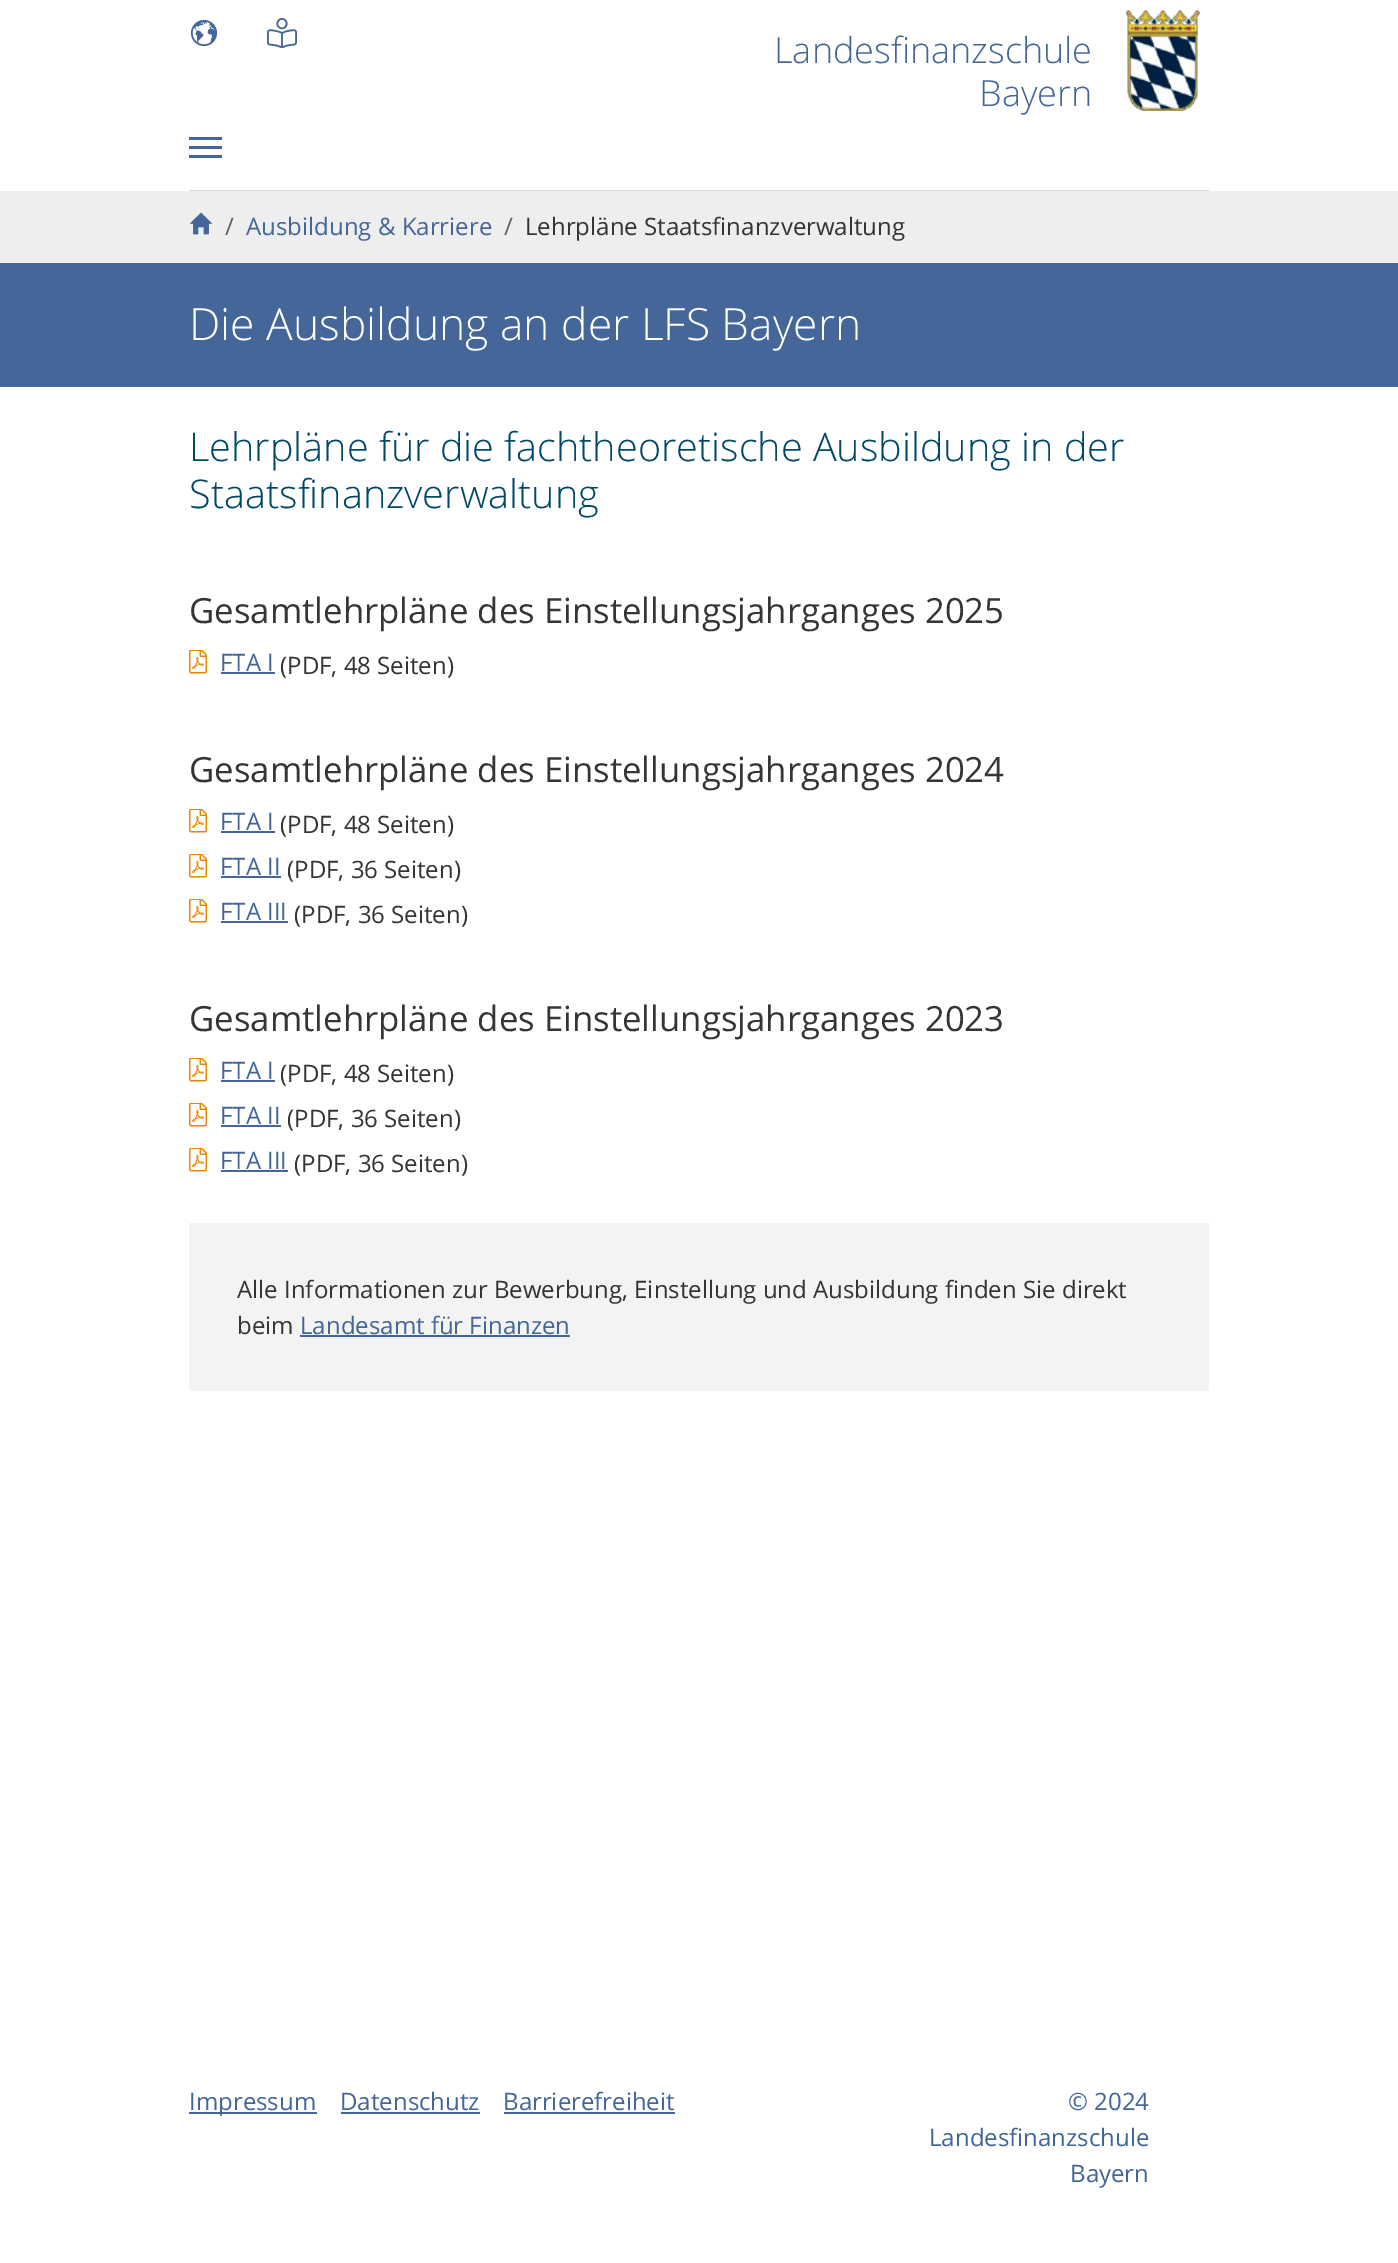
%!PS
<< /PageSize [1398 2263] >> setpagedevice
/rgb { 3 { 255 div 3 1 roll } repeat setrgbcolor } def
/font { [ exch dup neg 0 0 3 -1 roll 0 0 ] selectfont } def
/picture { 5 dict begin { /h /w /y /x /name } { exch def } forall
  gsave x y translate w h scale
  w h 8 [w 0 0 h 0 0] name (r) file false 3 colorimage grestore end } def
0 2263 translate 1 -1 scale
4 setmiterlimit
255 255 255 rgb
0 0 1398 2263 rectfill
(img/1.rgb) 190 19 28 28 picture
(img/2.rgb) 267 18 30 30 picture
(img/3.rgb) 1126 10 74 101 picture
[
  [189 190 1020 1 217 217 217]
  [189 146 33 3 68 102 153]
  [189 137 33 3 68 102 153]
  [189 155 33 3 68 102 153]
  [0 191 1398 72 238 238 238]
] { aload pop rgb rectfill } forall
(img/4.rgb) 189 212 24 23 picture
68 102 153 rgb
0 263 1398 124 rectfill
(img/5.rgb) 189 650 18 24 picture
221 672 54 2 rectfill
(img/5.rgb) 189 809 18 24 picture
221 831 54 2 rectfill
(img/5.rgb) 189 854 18 24 picture
221 876 60 2 rectfill
(img/5.rgb) 189 899 18 24 picture
221 921 67 2 rectfill
(img/5.rgb) 189 1058 18 24 picture
221 1080 54 2 rectfill
(img/5.rgb) 189 1103 18 24 picture
221 1125 60 2 rectfill
(img/5.rgb) 189 1148 18 24 picture
[
  [221 1170 67 2 68 102 153]
  [189 1223 1020 168 243 243 243]
  [300 1335 270 2 68 102 153]
  [189 2112 128 2 68 102 153]
  [341 2112 139 2 68 102 153]
  [504 2112 171 2 68 102 153]
] { aload pop rgb rectfill } forall
/OpenSans-Light 36 font
774 63 moveto (Landesfinanzschule) show
979 106 moveto (Bayern) show
/OpenSans-Regular 24 font
99 99 99 rgb
225 235 moveto (/) show
68 102 153 rgb
246 235 moveto (Ausbildung & Karriere) show
99 99 99 rgb
504 235 moveto (/) show
53 53 53 rgb
525 235 moveto (Lehrpläne Staatsfinanzverwaltung) show
/OpenSans-Light 44.4 font
255 255 255 rgb
189 340 moveto (Die Ausbildung an der LFS Bayern) show
/OpenSans-Light 39.6 font
0 72 104 rgb
189 461 moveto (Lehrpläne für die fachtheoretische Ausbildung in der) show
189 508 moveto (Staatsfinanzverwaltung) show
/OpenSans-Regular 34.75 font
53 53 53 rgb
189 623 moveto (Gesamtlehrpläne des Einstellungsjahrganges 2025) show
/OpenSans-Regular 24 font
68 102 153 rgb
220 671 moveto (FTA I) show
53 53 53 rgb
280 674 moveto (\(PDF, 48 Seiten\)) show
/OpenSans-Regular 34.75 font
189 782 moveto (Gesamtlehrpläne des Einstellungsjahrganges 2024) show
/OpenSans-Regular 24 font
68 102 153 rgb
220 830 moveto (FTA I) show
53 53 53 rgb
280 833 moveto (\(PDF, 48 Seiten\)) show
68 102 153 rgb
220 875 moveto (FTA II) show
53 53 53 rgb
287 878 moveto (\(PDF, 36 Seiten\)) show
68 102 153 rgb
220 920 moveto (FTA III) show
53 53 53 rgb
294 923 moveto (\(PDF, 36 Seiten\)) show
/OpenSans-Regular 34.75 font
189 1031 moveto (Gesamtlehrpläne des Einstellungsjahrganges 2023) show
/OpenSans-Regular 24 font
68 102 153 rgb
220 1079 moveto (FTA I) show
53 53 53 rgb
280 1082 moveto (\(PDF, 48 Seiten\)) show
68 102 153 rgb
220 1124 moveto (FTA II) show
53 53 53 rgb
287 1127 moveto (\(PDF, 36 Seiten\)) show
68 102 153 rgb
220 1169 moveto (FTA III) show
53 53 53 rgb
[
  [(\(PDF, 36 Seiten\)) 294 1172]
  [(Alle Informationen zur Bewerbung, Einstellung und Ausbildung finden Sie direkt) 237 1298]
  [(beim) 237 1334]
] { aload pop moveto show } forall
68 102 153 rgb
[
  [(Landesamt für Finanzen) 300 1334]
  [(Impressum) 189 2110]
  [(Datenschutz) 340 2110]
  [(Barrierefreiheit) 503 2110]
  [(© 2024) 1068 2110]
  [(Landesfinanzschule) 929 2146]
  [(Bayern) 1070 2182]
] { aload pop moveto show } forall
showpage
